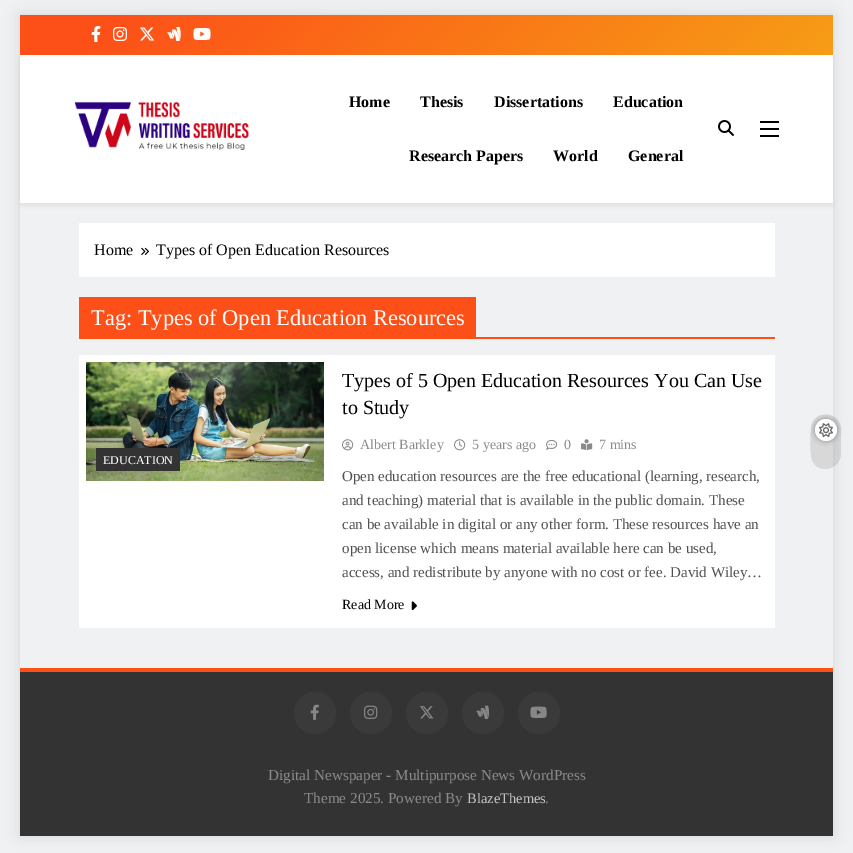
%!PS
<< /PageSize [853 853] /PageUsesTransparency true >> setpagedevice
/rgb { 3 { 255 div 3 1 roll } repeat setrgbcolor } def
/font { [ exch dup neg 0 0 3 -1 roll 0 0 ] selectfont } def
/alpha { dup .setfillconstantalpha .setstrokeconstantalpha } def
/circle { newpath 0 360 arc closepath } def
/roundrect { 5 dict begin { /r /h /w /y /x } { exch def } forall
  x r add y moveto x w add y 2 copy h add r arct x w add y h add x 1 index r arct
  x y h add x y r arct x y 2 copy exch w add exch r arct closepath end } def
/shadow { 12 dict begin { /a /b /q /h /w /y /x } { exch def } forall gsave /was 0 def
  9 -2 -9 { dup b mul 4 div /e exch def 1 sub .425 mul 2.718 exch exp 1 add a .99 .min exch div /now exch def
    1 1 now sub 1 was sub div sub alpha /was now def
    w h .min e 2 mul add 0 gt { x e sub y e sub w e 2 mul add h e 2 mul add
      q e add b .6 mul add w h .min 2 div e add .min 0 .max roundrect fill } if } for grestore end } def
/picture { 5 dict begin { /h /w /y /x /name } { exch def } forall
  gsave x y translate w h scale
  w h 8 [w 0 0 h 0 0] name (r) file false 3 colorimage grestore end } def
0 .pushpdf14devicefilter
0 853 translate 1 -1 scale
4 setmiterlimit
240 241 242 rgb
0 0 853 853 rectfill
gsave
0 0 moveto 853 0 lineto 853 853 lineto 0 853 lineto closepath 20 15 moveto 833 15 lineto 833 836 lineto 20 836 lineto closepath eoclip newpath
0 0 0 rgb
20 15 813 821 0 7.5 0.1 shadow
grestore
gsave 20 15 moveto 833 15 lineto 833 55 lineto 20 55 lineto closepath clip newpath
<< /ShadingType 2 /ColorSpace /DeviceRGB /Coords [213 -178 640 248] /Extend [true true] /Function << /FunctionType 3 /Domain [0 1] /Functions [<< /FunctionType 2 /Domain [0 1] /C0 [0.992 0.31 0.094] /C1 [0.992 0.31 0.094] /N 1 >> << /FunctionType 2 /Domain [0 1] /C0 [0.992 0.31 0.094] /C1 [0.969 0.616 0.086] /N 1 >>] /Bounds [0.1] /Encode [0 1 0 1] >> >> shfill grestore
(img/1.rgb) 91 26 10 16 picture
(img/2.rgb) 113 27 14 14 picture
(img/3.rgb) 140 27 15 14 picture
(img/4.rgb) 167 27 14 14 picture
(img/5.rgb) 193 28 18 12 picture
0 0 0 rgb
20 58 813 148 0 2 0.05 shadow
255 255 255 rgb
20 55 813 148 rectfill
(img/6.rgb) 74 101 175 49 picture
(img/7.rgb) 718 120 16 16 picture
[
  [760 121 19 2 0 0 0]
  [760 128 19 2 0 0 0]
  [760 135 19 2 0 0 0]
] { aload pop rgb rectfill } forall
0.1 alpha
841 430 moveto 841 454 lineto 840 470 818 475 812 460 curveto 810 454 810 436 811 430 curveto 811 409 841 410 841 430 curveto closepath fill
1 alpha
815 419 22 22 11 2.5 0.35 shadow
255 255 255 rgb
826 430 11 circle fill
(img/8.rgb) 819 423 14 15 picture
79 223 696 54 rectfill
(img/9.rgb) 141 247 8 8 picture
[
  [476 337 299 2 253 79 24]
  [79 297 397 42 253 79 24]
  [79 355 696 273 255 255 255]
] { aload pop rgb rectfill } forall
(img/10.rgb) 86 362 238 119 picture
51 51 51 rgb
96 448 84 23 rectfill
(img/11.rgb) 342 439 12 12 picture
(img/12.rgb) 454 439 12 12 picture
(img/13.rgb) 546 439 12 11 picture
(img/14.rgb) 581 439 12 12 picture
(img/15.rgb) 411 601 6 10 picture
253 79 24 rgb
20 668 813 4 rectfill
51 51 51 rgb
20 672 813 164 rectfill
58 58 58 rgb
315 713 21 circle fill
(img/16.rgb) 310 704 9 16 picture
371 713 21 circle fill
(img/17.rgb) 364 705 14 14 picture
427 713 21 circle fill
(img/18.rgb) 420 706 14 13 picture
483 713 21 circle fill
(img/19.rgb) 476 705 13 14 picture
539 713 21 circle fill
(img/20.rgb) 530 706 17 12 picture
/LiberationSerif-Bold 16 font
0 0 0 rgb
[
  [(Home) 349 107]
  [(Thesis) 420 107]
  [(Dissertations) 494 107]
  [(Education) 613 107]
  [(Research Papers) 409 161]
  [(World) 553 161]
  [(General) 628 161]
] { aload pop moveto show } forall
/LiberationSerif-Regular 16 font
94 255 moveto (Home) show
156 255 moveto (Types of Open Education Resources) show
/LiberationSerif-Regular 22.4 font
255 255 255 rgb
91 325 moveto (Tag: Types of Open Education Resources) show
/LiberationSerif-Regular 12 font
103 464 moveto (EDUCATION) show
/LiberationSerif-Regular 20 font
0 0 0 rgb
342 387 moveto (Types of 5 Open Education Resources You Can Use) show
342 414 moveto (to Study) show
/LiberationSerif-Regular 14 font
138 138 140 rgb
[
  [(Albert Barkley) 360 449]
  [(5 years ago) 472 449]
  [(0) 564 449]
  [(7 mins) 599 449]
] { aload pop moveto show } forall
/LiberationSerif-Regular 15 font
80 80 80 rgb
[
  [(Open education resources are the free educational \(learning, research,) 342 481]
  [(and teaching\) material that is available in the public domain. These) 342 505]
  [(can be available in digital or any other form. These resources have an) 342 529]
  [(open license which means material available here can be used,) 342 553]
  [(access, and redistribute by anyone with no cost or fee. David Wiley…) 342 577]
] { aload pop moveto show } forall
/LiberationSerif-Regular 14 font
0 0 0 rgb
342 609 moveto (Read More) show
/LiberationSerif-Regular 15.2 font
138 138 140 rgb
268 780 moveto (Digital Newspaper - Multipurpose News WordPress) show
304 803 moveto (Theme 2025. Powered By) show
/LiberationSerif-Regular 14.5 font
197 197 197 rgb
467 803 moveto (BlazeThemes) show
/LiberationSerif-Regular 15.2 font
138 138 140 rgb
545 803 moveto (.) show
.poppdf14devicefilter showpage
